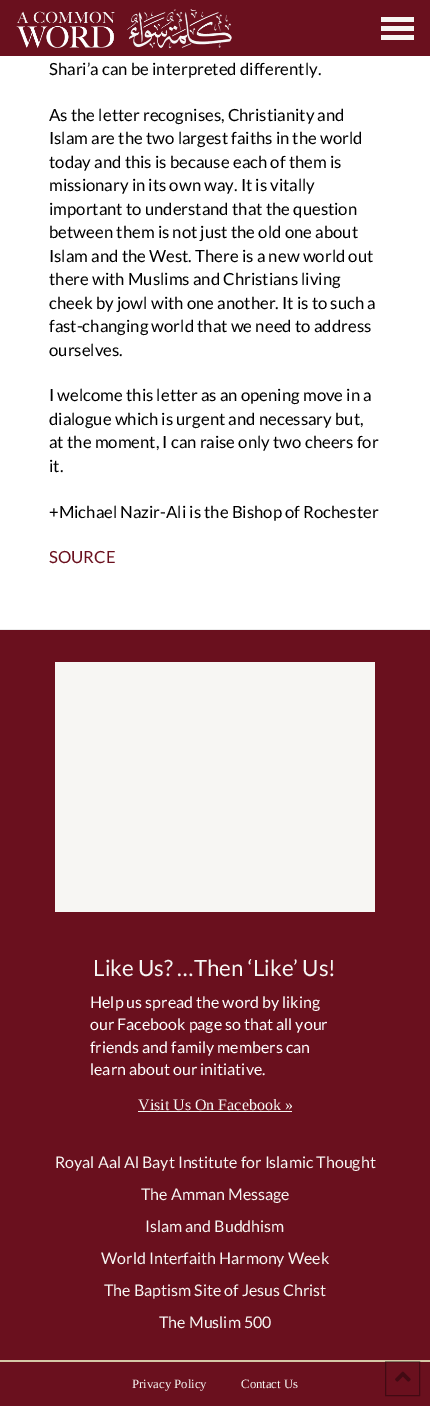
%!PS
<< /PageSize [430 1406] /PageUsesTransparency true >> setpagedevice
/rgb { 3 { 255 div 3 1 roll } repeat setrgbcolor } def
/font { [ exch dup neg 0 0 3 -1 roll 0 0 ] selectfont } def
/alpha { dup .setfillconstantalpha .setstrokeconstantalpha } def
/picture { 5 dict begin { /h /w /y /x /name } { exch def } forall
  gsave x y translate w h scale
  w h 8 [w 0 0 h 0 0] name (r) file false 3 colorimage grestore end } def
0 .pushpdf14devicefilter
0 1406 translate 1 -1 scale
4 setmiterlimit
255 255 255 rgb
0 0 430 1406 rectfill
106 16 30 rgb
0 0 430 56 rectfill
(img/1.rgb) 16 9 216 40 picture
[
  [381 17 33 5 247 246 243]
  [381 26 33 5 247 246 243]
  [381 35 33 5 247 246 243]
  [0 629 430 1 236 236 236]
  [0 630 430 730 106 16 30]
  [55 662 320 250 247 246 243]
  [138 1111 154 1 247 246 243]
  [0 1362 430 44 106 16 30]
  [0 1360 430 2 214 200 167]
] { aload pop rgb rectfill } forall
0.38 alpha
0 0 0 rgb
385.5 1361.5 34 34 rectstroke
1 alpha
(img/2.rgb) 395 1371 16 11 picture
/Lato-Regular 16.75 font
[
  [(Shari’a can be interpreted differently.) 49 75]
  [(As the letter recognises, Christianity and) 49 121]
  [(Islam are the two largest faiths in the world) 49 144]
  [(today and this is because each of them is) 49 168]
  [(missionary in its own way. It is vitally) 49 191]
  [(important to understand that the question) 49 215]
  [(between them is not just the old one about) 49 238]
  [(Islam and the West. There is a new world out) 49 262]
  [(there with Muslims and Christians living) 49 285]
  [(cheek by jowl with one another. It is to such a) 49 309]
  [(fast-changing world that we need to) 49 332]
  [(address) 314 332]
  [(ourselves.) 49 356]
  [(I welcome this letter as an opening move in a) 49 401]
  [(dialogue which is urgent and necessary but,) 49 425]
  [(at the moment, I can raise only two cheers for) 49 448]
  [(it.) 49 472]
  [(+Michael Nazir-Ali is the Bishop of Rochester) 49 518]
] { aload pop moveto show } forall
106 16 30 rgb
49 563 moveto (SOURCE) show
/Lato-Regular 22.4 font
247 246 243 rgb
93 976 moveto (Like Us? …Then ‘Like’ Us!) show
/Lato-Regular 16 font
255 255 255 rgb
[
  [(Help us spread the word by liking) 90 1008]
  [(our Facebook page so that all your) 90 1030]
  [(friends and family members can) 90 1053]
  [(learn about our initiative.) 90 1075]
] { aload pop moveto show } forall
/LiberationSerif-Regular 16 font
247 246 243 rgb
138 1110 moveto (Visit Us On Facebook ») show
/Lato-Regular 16 font
[
  [(Royal Aal Al Bayt Institute for Islamic Thought) 55 1168]
  [(The Amman Message) 141 1200]
  [(Islam and Buddhism) 145 1232]
  [(World Interfaith Harmony Week) 101 1264]
  [(The Baptism Site of Jesus Christ) 104 1296]
  [(The Muslim 500) 159 1328]
] { aload pop moveto show } forall
/LiberationSerif-Regular 12.75 font
132 1388 moveto (Privacy Policy) show
241 1388 moveto (Contact Us) show
.poppdf14devicefilter showpage
